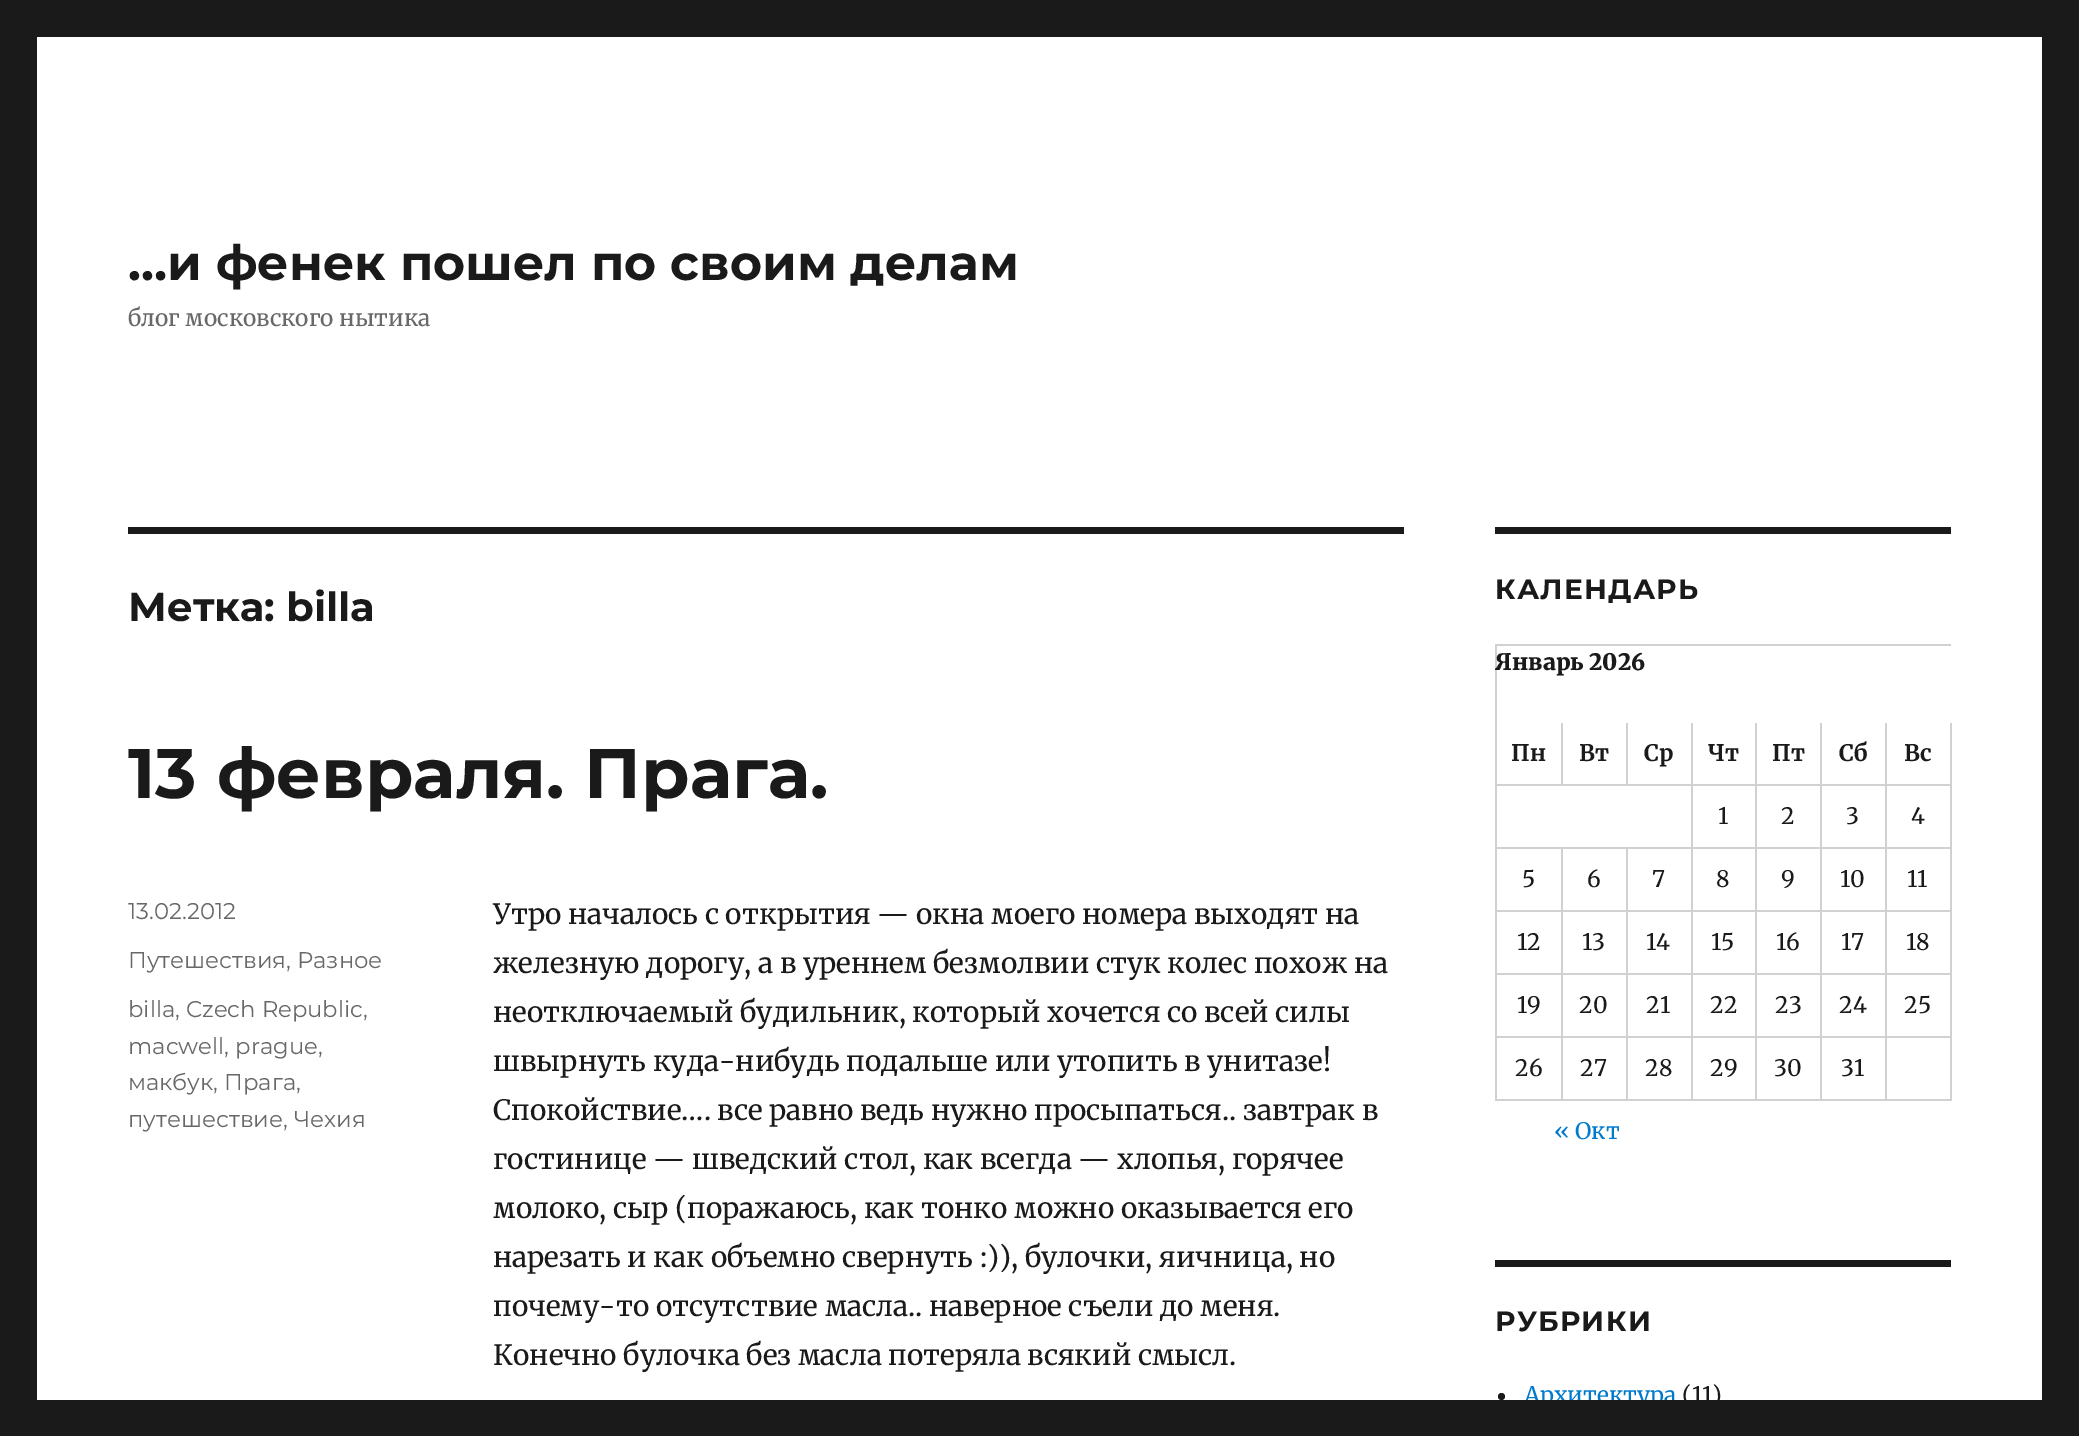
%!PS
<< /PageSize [2079 1436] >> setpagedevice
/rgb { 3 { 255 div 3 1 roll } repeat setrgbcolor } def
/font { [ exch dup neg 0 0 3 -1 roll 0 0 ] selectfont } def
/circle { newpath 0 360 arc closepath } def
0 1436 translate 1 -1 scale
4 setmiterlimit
26 26 26 rgb
0 0 2079 1436 rectfill
[
  [37 37 2005 1363 255 255 255]
  [128 527 1276 7 26 26 26]
  [1495 527 456 7 26 26 26]
  [1495 644 456 2 209 209 209]
  [1495 644 2 457 209 209 209]
  [1561 723 2 63 209 209 209]
  [1496 784 67 2 209 209 209]
  [1626 723 2 63 209 209 209]
  [1563 784 65 2 209 209 209]
  [1691 723 2 378 209 209 209]
  [1628 784 64 2 209 209 209]
  [1755 723 2 378 209 209 209]
  [1692 784 65 2 209 209 209]
  [1820 723 2 378 209 209 209]
  [1757 784 65 2 209 209 209]
  [1885 723 2 378 209 209 209]
  [1822 784 65 2 209 209 209]
  [1950 723 2 378 209 209 209]
  [1887 784 64 2 209 209 209]
  [1496 847 455 2 209 209 209]
  [1561 849 2 252 209 209 209]
  [1496 910 67 2 209 209 209]
  [1626 849 2 252 209 209 209]
  [1563 910 388 2 209 209 209]
  [1496 973 455 2 209 209 209]
  [1496 1036 455 2 209 209 209]
  [1496 1099 455 2 209 209 209]
  [1495 1260 456 7 26 26 26]
] { aload pop rgb rectfill } forall
1501.5 1396.5 3.5 circle fill
/Montserrat-Bold 49 font
128 280 moveto (…и фенек пошел по своим делам) show
/Merriweather-Regular 22.75 font
104 104 104 rgb
128 326 moveto (блог московского нытика) show
/Montserrat-Bold 40.25 font
26 26 26 rgb
128 621 moveto (Метка: billa) show
/Montserrat-Bold 70 font
128 798 moveto (13 февраля. Прага.) show
/Montserrat-Regular 22.75 font
104 104 104 rgb
[
  [(13.02.2012) 128 919]
  [(Путешествия, Разное) 128 968]
  [(billa, Czech Republic,) 128 1017]
  [(macwell, prague,) 128 1054]
  [(макбук, Прага,) 128 1090]
  [(путешествие, Чехия) 128 1127]
] { aload pop moveto show } forall
/Merriweather-Regular 28 font
26 26 26 rgb
[
  [(Утро началось с открытия — окна моего номера выходят на) 493 924]
  [(железную дорогу, а в уреннем безмолвии стук колес похож на) 493 973]
  [(неотключаемый будильник, который хочется со всей силы) 493 1022]
  [(швырнуть куда-нибудь подальше или утопить в унитазе!) 493 1071]
  [(Спокойствие…. все равно ведь нужно просыпаться.. завтрак в) 493 1120]
  [(гостинице — шведский стол, как всегда — хлопья, горячее) 493 1169]
  [(молоко, сыр \(поражаюсь, как тонко можно оказывается его) 493 1218]
  [(нарезать и как объемно свернуть :\)\), булочки, яичница, но) 493 1267]
  [(почему-то отсутствие масла.. наверное съели до меня.) 493 1316]
  [(Конечно булочка без масла потеряла всякий смысл.) 493 1365]
] { aload pop moveto show } forall
/Montserrat-Bold 28 font
1495 599 moveto 1.25 0 (КАЛЕНДАРЬ) ashow
/Merriweather-Black 22.75 font
1495 670 moveto (Январь 2026) show
/Merriweather-Bold 22.75 font
[
  [(Пн) 1511 761]
  [(Вт) 1579 761]
  [(Ср) 1644 761]
  [(Чт) 1708 761]
  [(Пт) 1772 761]
  [(Сб) 1839 761]
  [(Вс) 1904 761]
] { aload pop moveto show } forall
/Merriweather-Regular 22.75 font
[
  [(1) 1718 824]
  [(2) 1781 824]
  [(3) 1846 824]
  [(4) 1911 824]
  [(5) 1522 887]
  [(6) 1587 887]
  [(7) 1652 887]
  [(8) 1716 887]
  [(9) 1781 887]
  [(10) 1840 887]
  [(11) 1907 887]
  [(12) 1517 950]
  [(13) 1582 950]
  [(14) 1646 950]
  [(15) 1711 950]
  [(16) 1776 950]
  [(17) 1841 950]
  [(18) 1906 950]
  [(19) 1517 1013]
  [(20) 1579 1013]
  [(21) 1646 1013]
  [(22) 1710 1013]
  [(23) 1775 1013]
  [(24) 1839 1013]
  [(25) 1904 1013]
  [(26) 1515 1076]
  [(27) 1580 1076]
  [(28) 1645 1076]
  [(29) 1710 1076]
  [(30) 1774 1076]
  [(31) 1841 1076]
] { aload pop moveto show } forall
0 122 204 rgb
1554 1139 moveto (« Окт) show
/Montserrat-Bold 28 font
26 26 26 rgb
1495 1331 moveto 1.25 0 (РУБРИКИ) ashow
/Merriweather-Regular 22.75 font
0 122 204 rgb
1524 1403 moveto (Архитектура) show
26 26 26 rgb
1682 1403 moveto (\(11\)) show
1523 1400 153 9 rectfill
showpage
